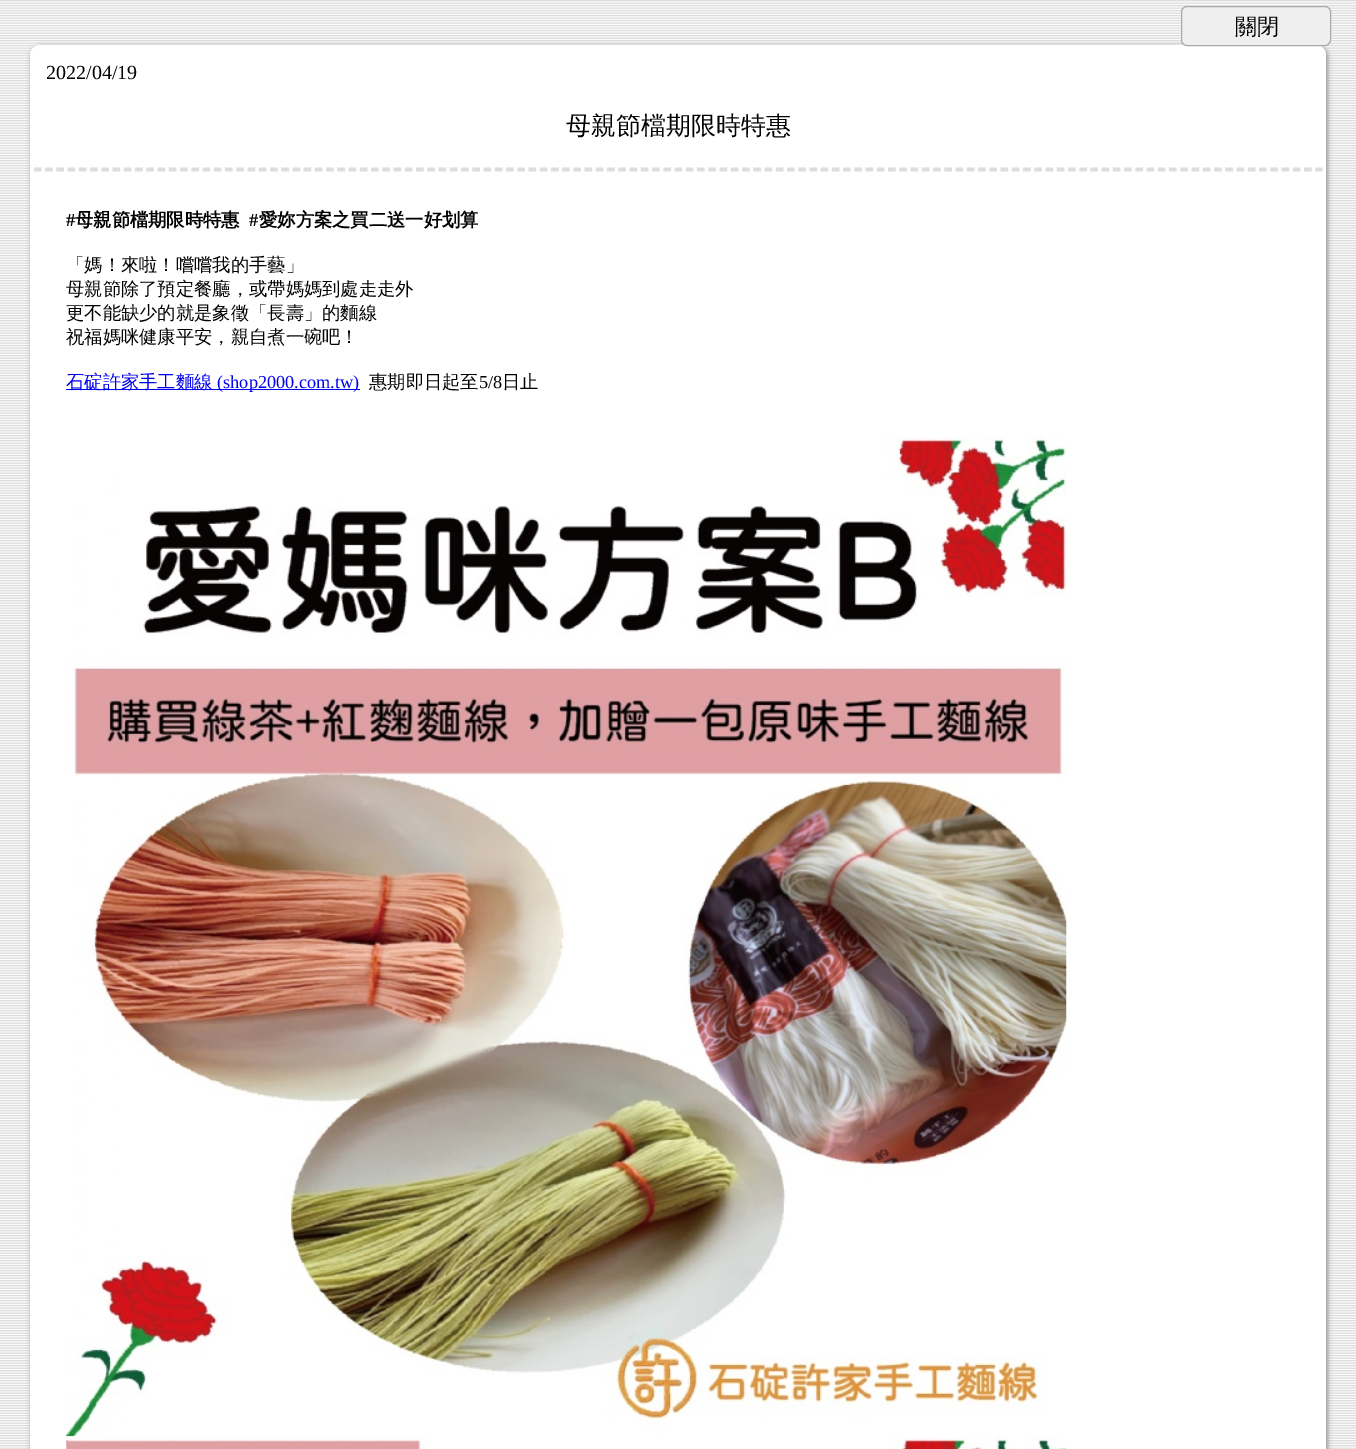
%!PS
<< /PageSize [1356 1449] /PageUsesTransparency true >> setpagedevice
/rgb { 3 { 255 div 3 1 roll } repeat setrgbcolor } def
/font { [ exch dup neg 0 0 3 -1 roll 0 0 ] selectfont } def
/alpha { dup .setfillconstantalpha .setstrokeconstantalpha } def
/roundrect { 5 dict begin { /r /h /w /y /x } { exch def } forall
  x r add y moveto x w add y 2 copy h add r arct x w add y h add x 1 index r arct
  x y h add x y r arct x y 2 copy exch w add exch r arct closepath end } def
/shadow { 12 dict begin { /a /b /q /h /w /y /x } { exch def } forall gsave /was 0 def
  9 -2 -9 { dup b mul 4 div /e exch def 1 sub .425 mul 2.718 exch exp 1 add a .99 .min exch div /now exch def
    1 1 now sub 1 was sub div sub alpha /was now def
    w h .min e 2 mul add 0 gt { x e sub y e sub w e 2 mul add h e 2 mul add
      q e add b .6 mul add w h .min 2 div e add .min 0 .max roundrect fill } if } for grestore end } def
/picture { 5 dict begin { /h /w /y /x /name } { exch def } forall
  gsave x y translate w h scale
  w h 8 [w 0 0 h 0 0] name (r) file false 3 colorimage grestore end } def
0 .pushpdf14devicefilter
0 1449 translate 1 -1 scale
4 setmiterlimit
255 255 255 rgb
0 0 1356 1449 rectfill
(img/1.rgb) 0 0 1356 1449 picture
153 153 153 rgb
31 46 1297 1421 10 2.5 1 shadow
255 255 255 rgb
30 45 1296 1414 10 roundrect fill
239 239 239 rgb
1181.5 6.5 149 39 5.5 roundrect gsave fill grestore
170 170 170 rgb
stroke
221 221 221 rgb
3.8 setlinewidth
[7.5 3.74] 0 setdash
34 169.5 moveto 1322.5 169.5 lineto stroke
0 0 238 rgb
66 389 294 1 rectfill
(img/2.rgb) 66 436 1001 1001 picture
(img/3.rgb) 66 1436 1001 13 picture
/WenQuanYiZenHei-Medium 22 font
0 0 0 rgb
1235 34 moveto (關閉) show
/LiberationSerif-Regular 20 font
46 79 moveto (2022/04/19) show
/WenQuanYiZenHei-Medium 25 font
566 134 moveto (母親節檔期限時特惠) show
/LiberationSerif-Bold 18.3 font
66 226 moveto (#) show
/WenQuanYiZenHei-Bold 18.3 font
75 226 moveto (母親節檔期限時特惠) show
/LiberationSerif-Bold 18.3 font
249 226 moveto (#) show
/WenQuanYiZenHei-Bold 18.3 font
259 226 moveto (愛妳方案之買二送一好划算) show
/WenQuanYiZenHei-Medium 18.3 font
[
  [(「媽！來啦！嚐嚐我的手藝」) 66 271]
  [(母親節除了預定餐廳，或帶媽媽到處走走外) 66 295]
  [(更不能缺少的就是象徵「長壽」的麵線) 66 319]
  [(祝福媽咪健康平安，親自煮一碗吧！) 66 343]
] { aload pop moveto show } forall
0 0 238 rgb
66 388 moveto (石碇許家手工麵線) show
/LiberationSerif-Regular 18.3 font
217 388 moveto (\(shop2000.com.tw\)) show
/WenQuanYiZenHei-Medium 18.3 font
0 0 0 rgb
369 388 moveto (惠期即日起至) show
/LiberationSerif-Regular 18.3 font
479 388 moveto (5/8) show
/WenQuanYiZenHei-Medium 18.3 font
502 388 moveto (日止) show
.poppdf14devicefilter showpage
